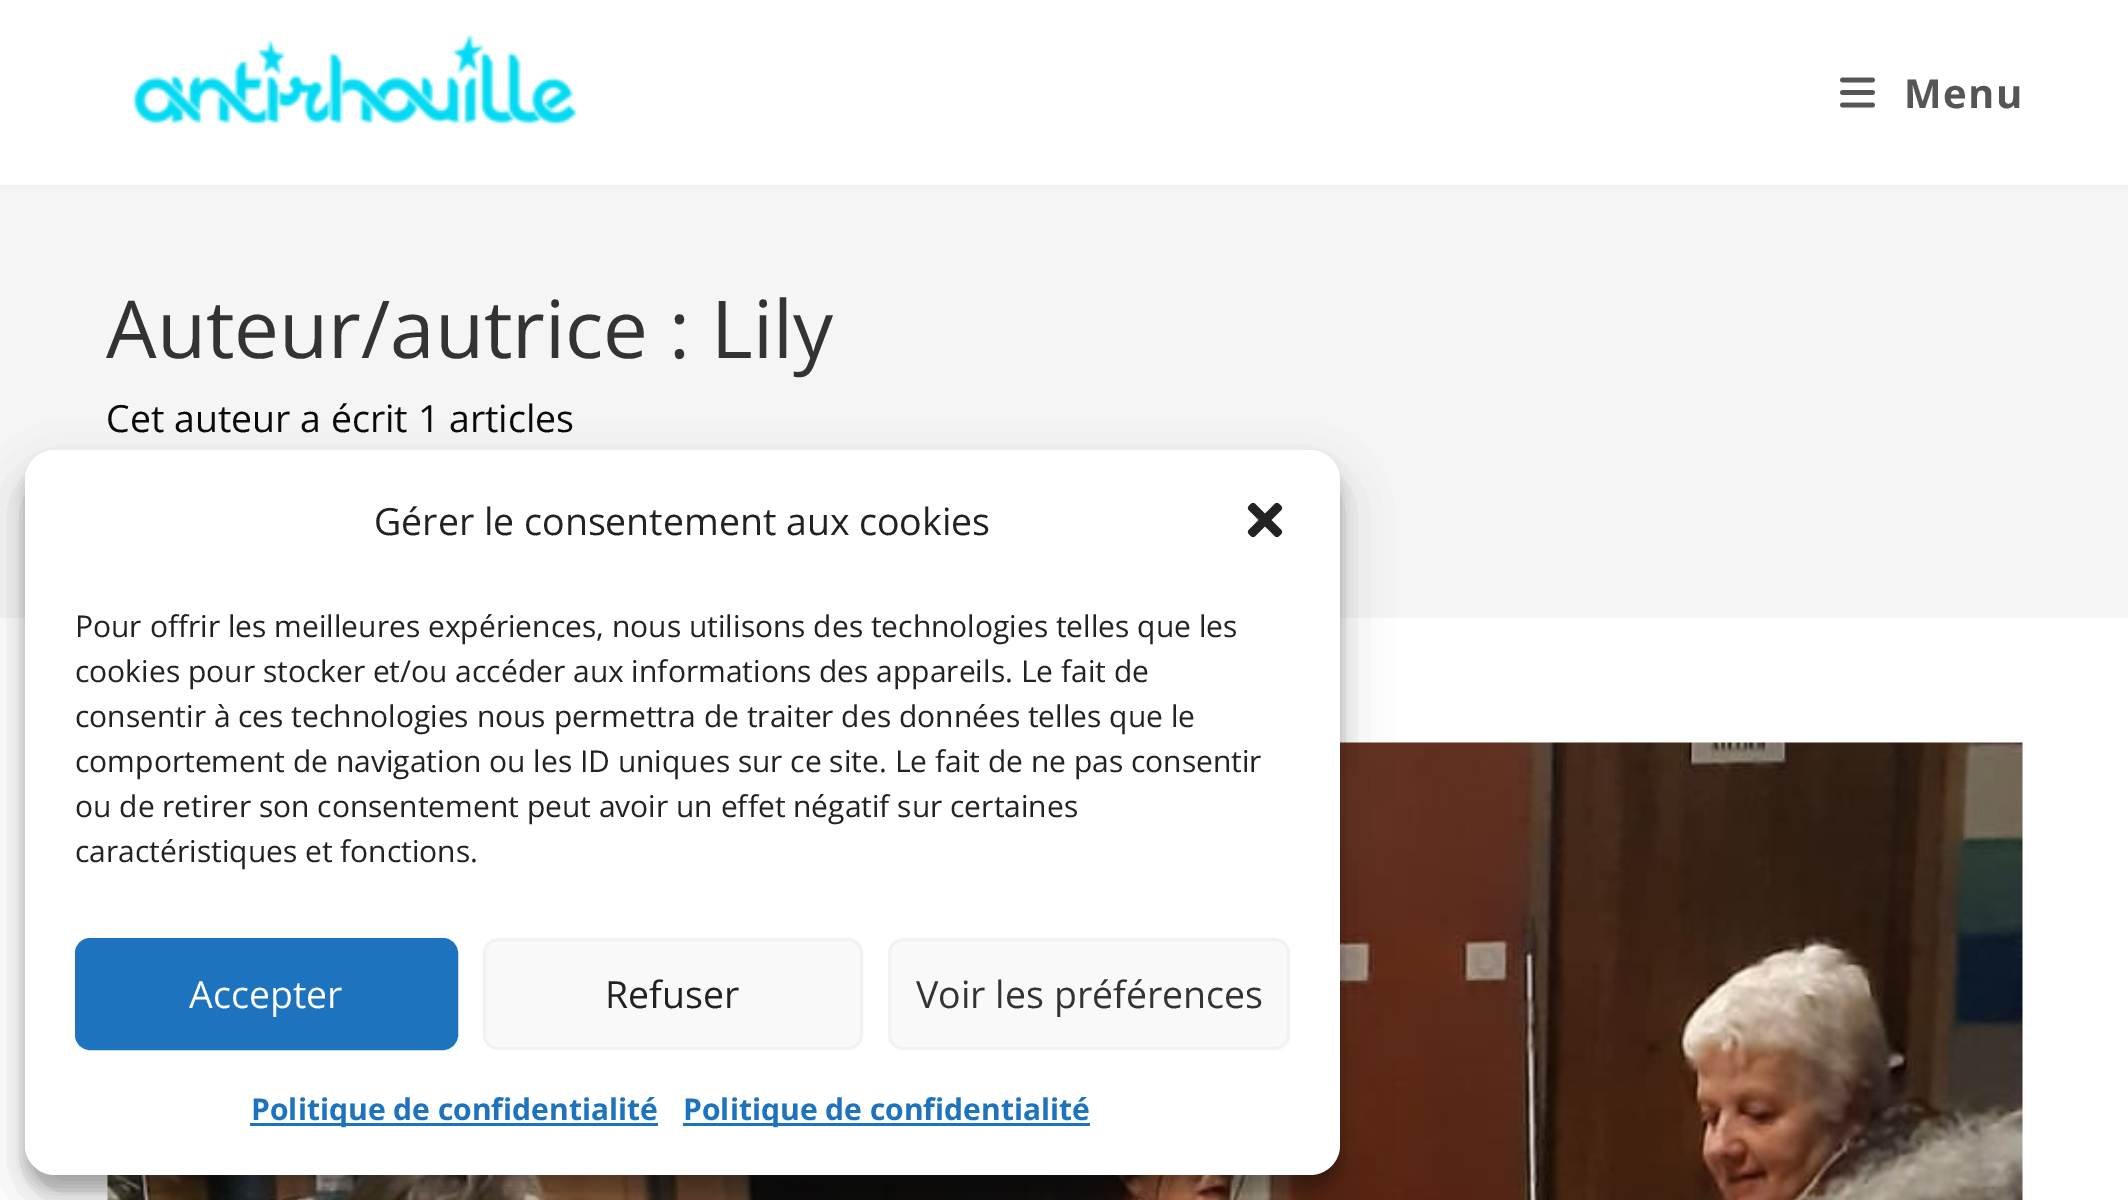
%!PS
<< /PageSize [2128 1200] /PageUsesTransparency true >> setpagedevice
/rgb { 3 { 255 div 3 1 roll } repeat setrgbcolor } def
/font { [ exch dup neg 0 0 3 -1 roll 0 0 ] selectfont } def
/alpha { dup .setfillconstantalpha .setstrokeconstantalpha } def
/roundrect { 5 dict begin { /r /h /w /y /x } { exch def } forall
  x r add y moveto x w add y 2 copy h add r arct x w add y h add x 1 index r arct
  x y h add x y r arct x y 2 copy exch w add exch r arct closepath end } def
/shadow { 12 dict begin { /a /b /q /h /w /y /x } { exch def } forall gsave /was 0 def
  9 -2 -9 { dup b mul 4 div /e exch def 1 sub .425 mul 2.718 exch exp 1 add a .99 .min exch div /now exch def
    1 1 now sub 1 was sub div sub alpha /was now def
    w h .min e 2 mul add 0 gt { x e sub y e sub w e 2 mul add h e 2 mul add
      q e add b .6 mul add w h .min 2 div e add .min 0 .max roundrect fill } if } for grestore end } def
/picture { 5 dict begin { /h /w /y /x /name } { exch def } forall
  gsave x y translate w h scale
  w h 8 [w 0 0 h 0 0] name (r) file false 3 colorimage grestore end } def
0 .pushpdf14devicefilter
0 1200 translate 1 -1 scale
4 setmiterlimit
255 255 255 rgb
0 0 2128 1200 rectfill
241 241 241 rgb
0 185 2128 3 rectfill
(img/1.rgb) 132 34 446 92 picture
(img/2.rgb) 1840 77 35 31 picture
245 245 245 rgb
0 188 2128 430 rectfill
(img/3.rgb) 107 742 1916 458 picture
0 0 0 rgb
25 465 1315 725 30 7.5 0.23 shadow
25 475 1315 725 30 25 0.19 shadow
255 255 255 rgb
25 450 1315 725 30 roundrect fill
(img/4.rgb) 1247 502 36 36 picture
30 115 190 rgb
76.5 939.5 380 109 13.5 roundrect gsave fill grestore
3 setlinewidth
stroke
249 249 249 rgb
484.5 939.5 377 109 13.5 roundrect gsave fill grestore
242 242 242 rgb
stroke
249 249 249 rgb
889.5 939.5 399 109 13.5 roundrect gsave fill grestore
242 242 242 rgb
stroke
30 115 190 rgb
250 1123 408 3 rectfill
683 1123 407 3 rectfill
/OpenSans-Bold 40 font
85 85 85 rgb
1904 108 moveto 1.5 0 (Menu) ashow
/OpenSans-Regular 80 font
51 51 51 rgb
106 358 moveto (Auteur/autrice : Lily) show
/OpenSans-Regular 37.5 font
10 10 10 rgb
106 432 moveto (Cet auteur a écrit 1 articles) show
34 34 34 rgb
374 535 moveto (Gérer le consentement aux cookies) show
/OpenSans-Regular 30 font
[
  [(Pour offrir les meilleures expériences, nous utilisons des technologies telles que les) 75 637]
  [(cookies pour stocker et/ou accéder aux informations des appareils. Le fait de) 75 682]
  [(consentir à ces technologies nous permettra de traiter des données telles que le) 75 727]
  [(comportement de navigation ou les ID uniques sur ce site. Le fait de ne pas consentir) 75 772]
  [(ou de retirer son consentement peut avoir un effet négatif sur certaines) 75 817]
  [(caractéristiques et fonctions.) 75 862]
] { aload pop moveto show } forall
/OpenSans-Regular 37.5 font
255 255 255 rgb
189 1008 moveto (Accepter) show
34 34 34 rgb
605 1008 moveto (Refuser) show
51 51 51 rgb
916 1008 moveto (Voir les préférences) show
/OpenSans-Bold 30 font
30 115 190 rgb
251 1120 moveto (Politique de confidentialité) show
683 1120 moveto (Politique de confidentialité) show
.poppdf14devicefilter showpage
